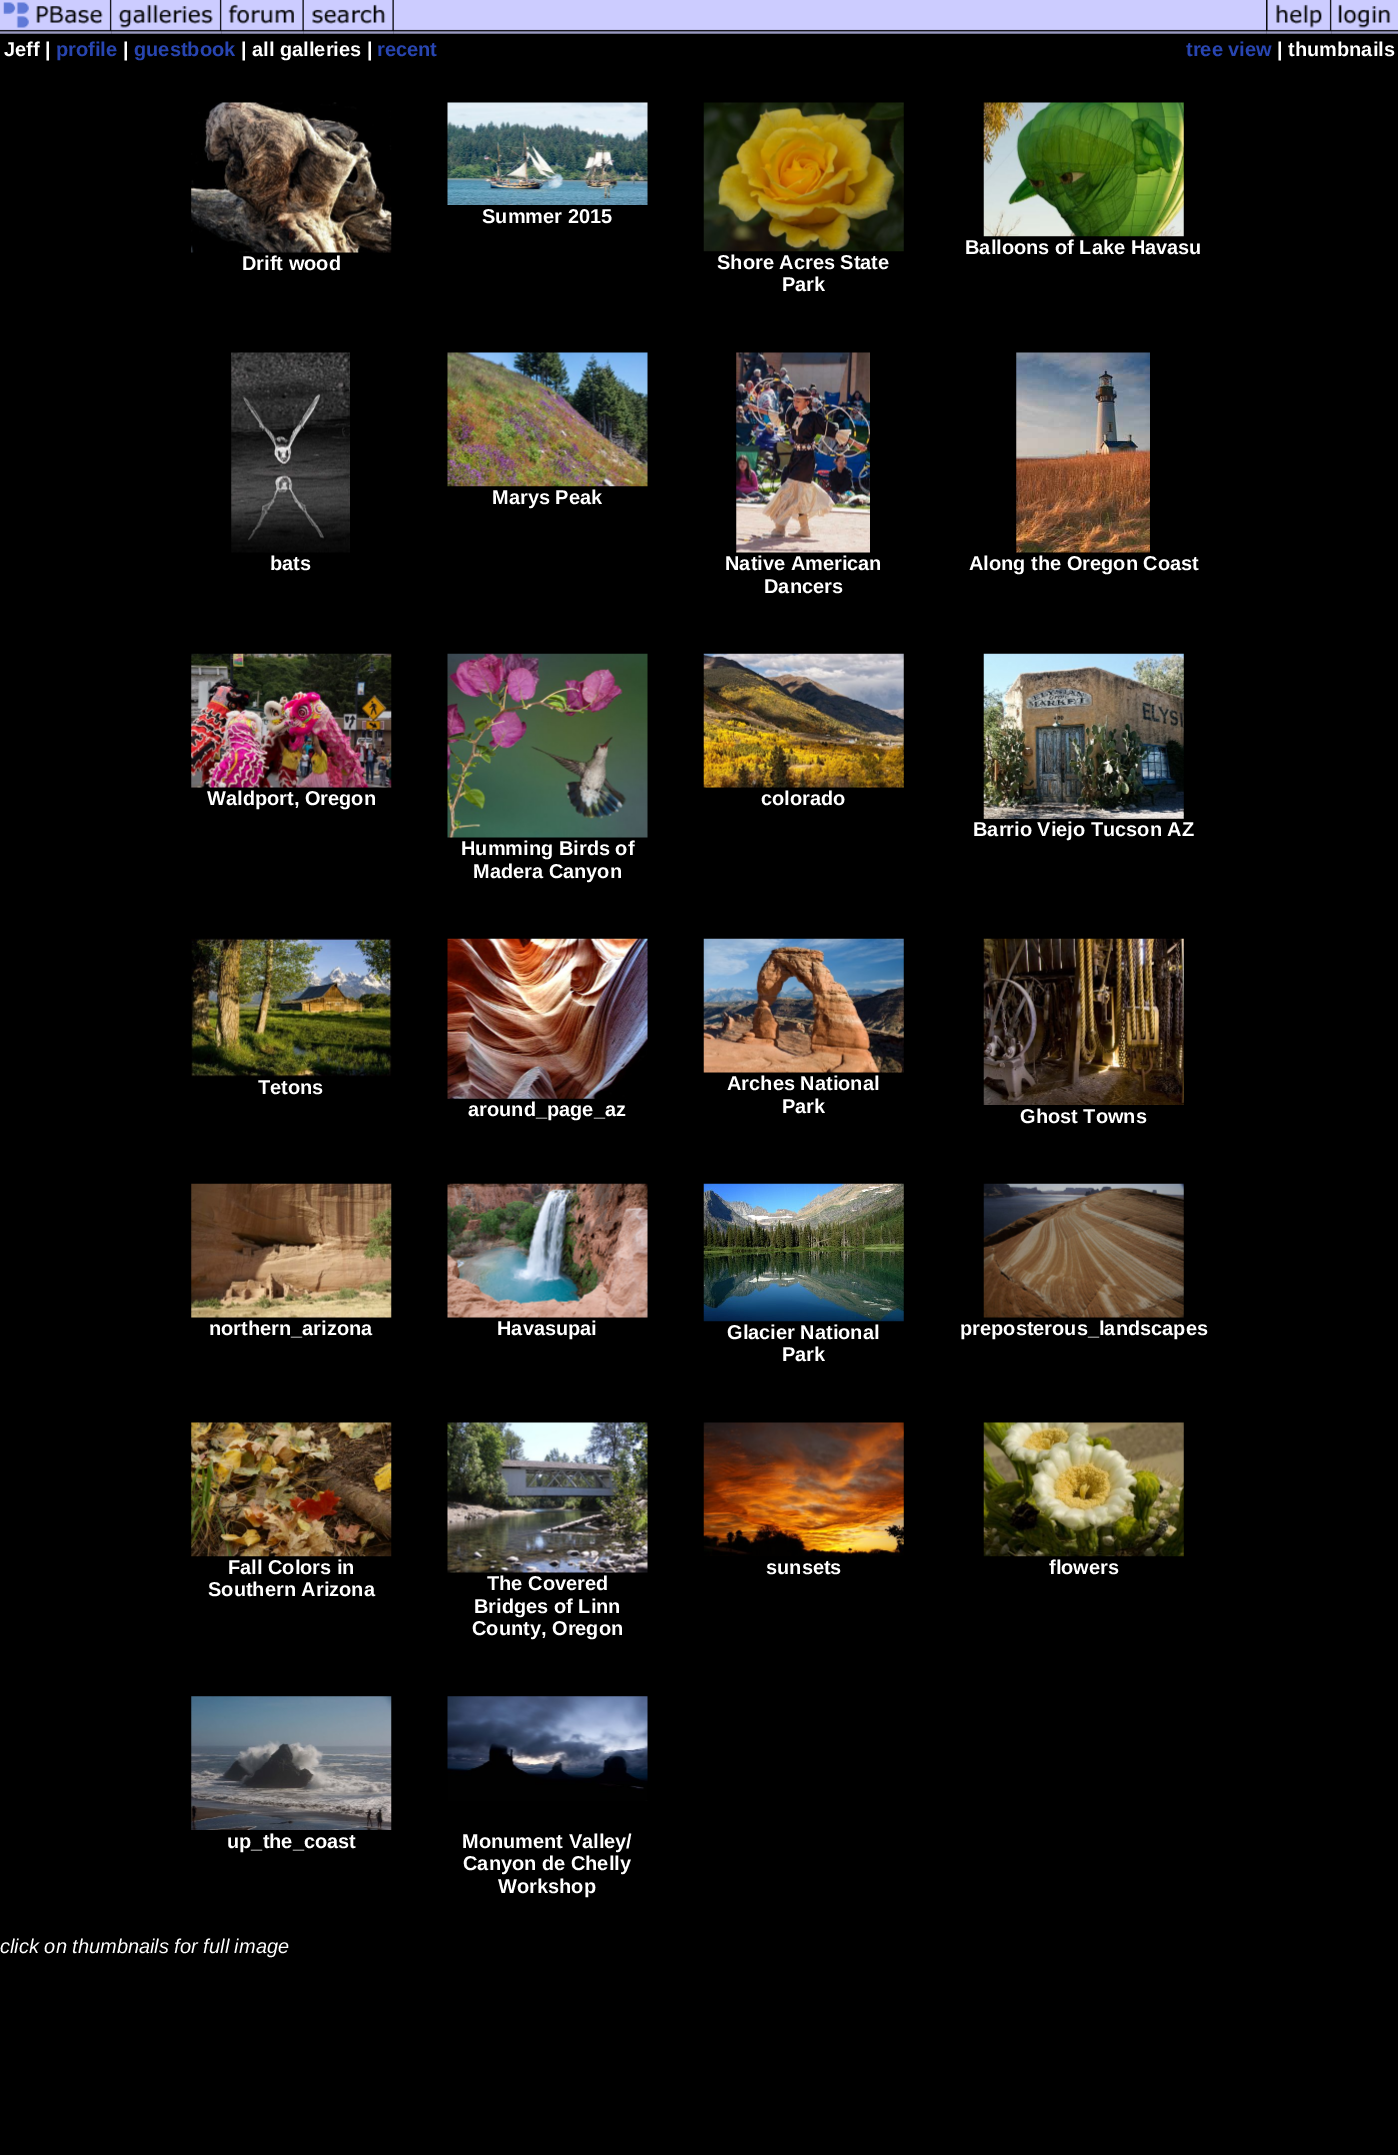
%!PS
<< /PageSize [1398 2155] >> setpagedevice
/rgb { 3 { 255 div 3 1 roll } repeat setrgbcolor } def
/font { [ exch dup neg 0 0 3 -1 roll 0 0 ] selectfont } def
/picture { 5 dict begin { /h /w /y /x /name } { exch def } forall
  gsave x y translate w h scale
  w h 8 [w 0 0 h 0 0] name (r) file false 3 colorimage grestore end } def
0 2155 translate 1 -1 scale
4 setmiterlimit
0 0 0 rgb
0 0 1398 2155 rectfill
(img/1.rgb) 0 0 112 34 picture
(img/2.rgb) 111 0 111 34 picture
(img/3.rgb) 221 0 83 34 picture
(img/4.rgb) 303 0 91 34 picture
(img/5.rgb) 393 0 874 34 picture
(img/6.rgb) 1266 0 66 34 picture
(img/7.rgb) 1331 0 67 34 picture
(img/8.rgb) 447 102 201 103 picture
(img/9.rgb) 983 102 201 135 picture
(img/10.rgb) 191 102 201 151 picture
(img/11.rgb) 703 102 201 150 picture
(img/12.rgb) 447 352 201 135 picture
(img/13.rgb) 231 352 119 201 picture
(img/14.rgb) 736 352 134 201 picture
(img/15.rgb) 1016 352 134 201 picture
(img/16.rgb) 191 653 201 135 picture
(img/17.rgb) 703 653 201 135 picture
(img/18.rgb) 983 653 201 166 picture
(img/19.rgb) 447 653 201 185 picture
(img/20.rgb) 191 938 201 139 picture
(img/21.rgb) 703 938 201 135 picture
(img/22.rgb) 447 938 201 161 picture
(img/23.rgb) 983 938 201 167 picture
(img/24.rgb) 191 1183 201 135 picture
(img/25.rgb) 447 1183 201 135 picture
(img/26.rgb) 703 1183 201 139 picture
(img/27.rgb) 983 1183 201 135 picture
(img/28.rgb) 191 1422 201 135 picture
(img/29.rgb) 703 1422 201 134 picture
(img/30.rgb) 983 1422 201 135 picture
(img/31.rgb) 447 1422 201 151 picture
(img/32.rgb) 191 1696 201 134 picture
(img/33.rgb) 447 1696 201 105 picture
/LiberationSans-Bold 20 font
255 255 255 rgb
4 56 moveto (Jeff |) show
40 69 177 rgb
56 56 moveto (profile) show
255 255 255 rgb
123 56 moveto (|) show
40 69 177 rgb
134 56 moveto (guestbook) show
255 255 255 rgb
241 56 moveto (| all galleries |) show
40 69 177 rgb
377 56 moveto (recent) show
1186 56 moveto (tree view) show
255 255 255 rgb
[
  [(| thumbnails) 1277 56]
  [(Summer 2015) 482 223]
  [(Balloons of Lake Havasu) 965 254]
  [(Drift wood) 242 270]
  [(Shore Acres State) 717 269]
  [(Park) 782 291]
  [(Marys Peak) 492 504]
  [(bats) 270 570]
  [(Native American) 725 570]
  [(Dancers) 764 593]
  [(Along the Oregon Coast) 969 570]
  [(Waldport, Oregon) 207 805]
  [(colorado) 761 805]
  [(Barrio Viejo Tucson AZ) 973 836]
  [(Humming Birds of) 461 855]
  [(Madera Canyon) 473 878]
  [(Tetons) 258 1094]
  [(Arches National) 727 1090]
  [(Park) 782 1113]
  [(around_page_az) 468 1116]
  [(Ghost Towns) 1020 1123]
  [(northern_arizona) 209 1335]
  [(Havasupai) 497 1335]
  [(Glacier National) 727 1339]
  [(Park) 782 1361]
  [(preposterous_landscapes) 960 1335]
  [(Fall Colors in) 228 1574]
  [(Southern Arizona) 208 1596]
  [(sunsets) 766 1574]
  [(flowers) 1049 1574]
  [(The Covered) 487 1590]
  [(Bridges of Linn) 474 1613]
  [(County, Oregon) 472 1635]
  [(up_the_coast) 227 1848]
  [(Monument Valley/) 462 1848]
  [(Canyon de Chelly) 463 1870]
  [(Workshop) 498 1893]
] { aload pop moveto show } forall
/LiberationSans-Italic 20 font
0 1953 moveto (click on thumbnails for full image) show
showpage
